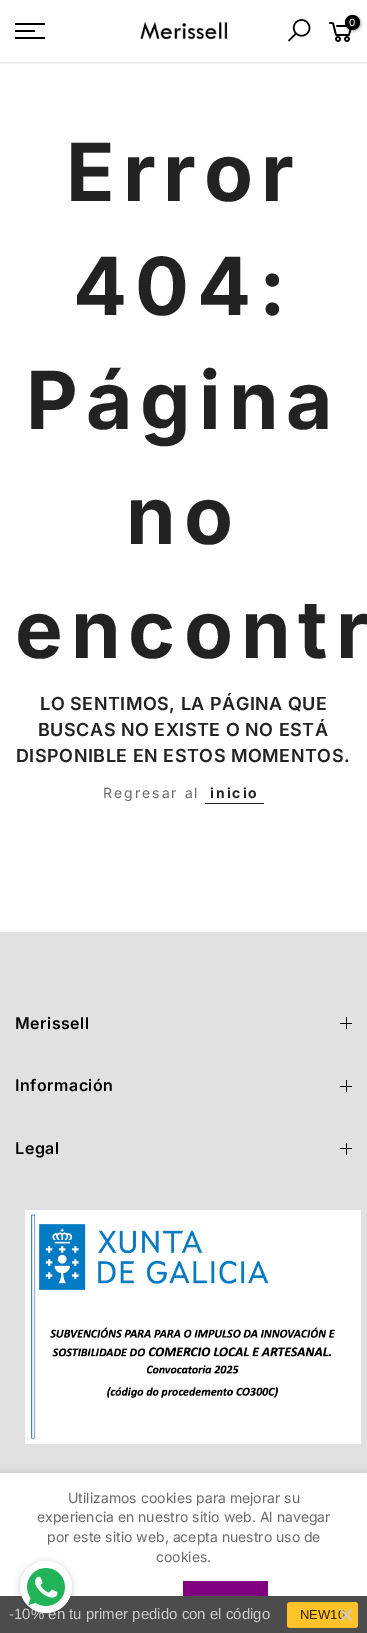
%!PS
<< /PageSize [367 1633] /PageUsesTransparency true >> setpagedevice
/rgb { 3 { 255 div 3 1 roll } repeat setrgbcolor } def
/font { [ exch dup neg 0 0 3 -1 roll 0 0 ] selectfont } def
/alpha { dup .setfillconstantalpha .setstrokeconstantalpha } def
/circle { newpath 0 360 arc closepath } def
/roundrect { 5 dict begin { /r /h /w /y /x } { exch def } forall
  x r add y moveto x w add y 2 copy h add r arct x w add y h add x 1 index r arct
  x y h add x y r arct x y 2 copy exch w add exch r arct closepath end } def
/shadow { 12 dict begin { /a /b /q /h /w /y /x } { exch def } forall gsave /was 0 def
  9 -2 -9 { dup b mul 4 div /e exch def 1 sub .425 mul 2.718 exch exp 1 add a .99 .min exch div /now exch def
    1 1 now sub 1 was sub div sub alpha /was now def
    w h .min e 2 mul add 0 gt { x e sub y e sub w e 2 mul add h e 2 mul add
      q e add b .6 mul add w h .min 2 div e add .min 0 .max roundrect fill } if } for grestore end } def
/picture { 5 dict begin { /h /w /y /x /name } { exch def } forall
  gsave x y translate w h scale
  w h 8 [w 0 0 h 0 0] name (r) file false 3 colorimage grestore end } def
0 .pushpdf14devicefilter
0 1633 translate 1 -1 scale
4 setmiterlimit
255 255 255 rgb
0 0 367 1633 rectfill
gsave
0 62 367 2 rectclip
0 0 0 rgb
0 1 367 62 0 1.5 0.1 shadow
grestore
[
  [15 23 30 2 0 0 0]
  [15 30 20 2 0 0 0]
  [15 37 30 2 0 0 0]
] { aload pop rgb rectfill } forall
(img/1.rgb) 140 22 88 18 picture
(img/2.rgb) 288 19 23 23 picture
(img/3.rgb) 329 22 23 20 picture
346 16 15 15 7.5 1.5 0.3 shadow
352.5 22.5 7.5 circle fill
[
  [205 803 59 1 34 34 34]
  [0 932 367 541 225 225 225]
  [346 1017 1 12 0 0 0]
  [340 1023 12 1 0 0 0]
  [346 1080 1 12 0 0 0]
  [340 1086 12 1 0 0 0]
  [346 1143 1 12 0 0 0]
  [340 1148 12 1 0 0 0]
] { aload pop rgb rectfill } forall
(img/4.rgb) 25 1210 336 234 picture
0 1473 367 160 0 4.5 0.14 shadow
[
  [0 1473 367 123 255 255 255]
  [183 1581 85 15 128 0 128]
  [0 1596 367 37 76 76 76]
] { aload pop rgb rectfill } forall
27 27 27 rgb
20 1562 52 52 26 3 0.2 shadow
255 194 41 rgb
287 1602 71 26 3 roundrect fill
/Inter-Regular 10 font
255 255 255 rgb
349 26 moveto (0) show
/Inter-Bold 80 font
34 34 34 rgb
66 201 moveto 8 0 (Error) ashow
73 315 moveto 8 0 (404:) ashow
26 429 moveto 8 0 (Página) ashow
126 544 moveto 8 0 (no) ashow
15 658 moveto 8 0 (encontr) ashow
/Inter-SemiBold 18 font
40 710 moveto 0.5 0 (LO SENTIMOS, LA PÁGINA QUE) ashow
38 736 moveto 0.5 0 (BUSCAS NO EXISTE O NO ESTÁ) ashow
16 762 moveto 0.5 0 (DISPONIBLE EN ESTOS MOMENTOS.) ashow
/Inter-Regular 14 font
105 105 105 rgb
103 798 moveto 2 0 (Regresar al) ashow
/Inter-Bold 14 font
34 34 34 rgb
210 798 moveto 2 0 (inicio) ashow
/Inter-SemiBold 16 font
0 0 0 rgb
15 1029 moveto 0.5 0 (Merissell) ashow
15 1091 moveto 0.5 0 (Información) ashow
15 1154 moveto 0.5 0 (Legal) ashow
/Inter-Regular 14 font
105 105 105 rgb
[
  [(Utilizamos cookies para mejorar su) 68 1503]
  [(experiencia en nuestro sitio web. Al navegar) 37 1522]
  [(por este sitio web, acepta nuestro uso de) 47 1542]
  [(cookies.) 156 1562]
] { aload pop moveto show } forall
/LiberationSans-Regular 15 font
204 204 204 rgb
9 1619 moveto (-10% en tu primer pedido con el código) show
255 255 255 rgb
46 1587 25.5 circle gsave fill grestore
stroke
(img/5.rgb) 27 1568 38 38 picture
/LiberationSans-Regular 13 font
51 32 7 rgb
300 1619 moveto (NEW10) show
(img/6.rgb) 340 1609 13 12 picture
.poppdf14devicefilter showpage
